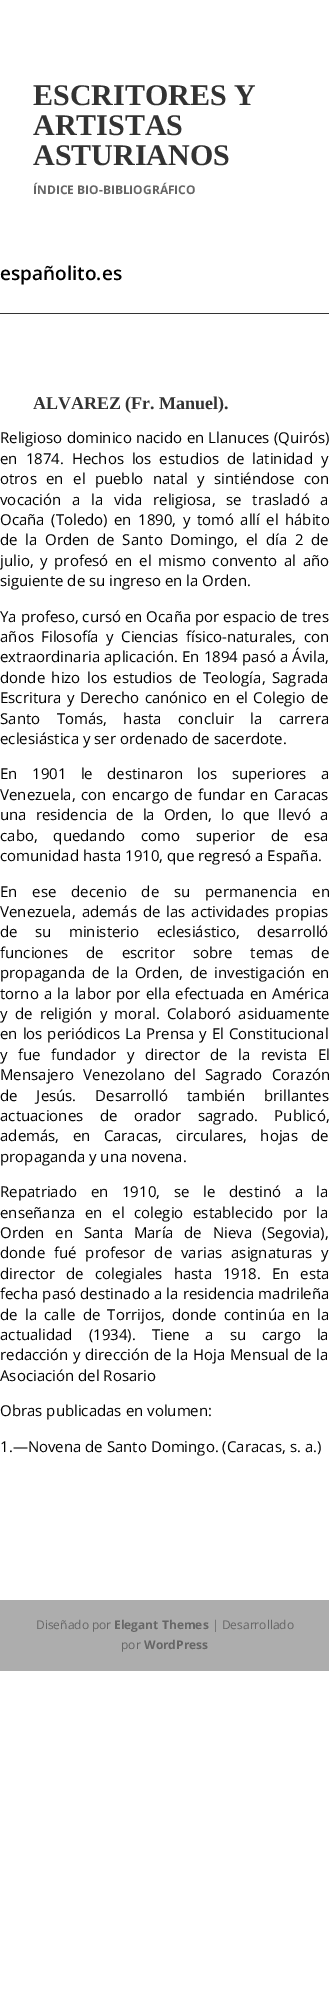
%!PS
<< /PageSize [329 2007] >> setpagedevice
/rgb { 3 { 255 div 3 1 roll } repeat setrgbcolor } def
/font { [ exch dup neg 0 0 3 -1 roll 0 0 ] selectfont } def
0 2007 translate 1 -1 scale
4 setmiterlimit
255 255 255 rgb
0 0 329 2007 rectfill
51 51 51 rgb
0 313 329 1 rectfill
173 173 173 rgb
0 1600 329 71 rectfill
/LiberationSerif-Bold 30 font
51 51 51 rgb
[
  [(ESCRITORES Y) 33 105]
  [(ARTISTAS) 33 135]
  [(ASTURIANOS) 33 165]
] { aload pop moveto show } forall
/OpenSans-Bold 12 font
102 102 102 rgb
33 194 moveto (ÍNDICE BIO-BIBLIOGRÁFICO) show
/OpenSans-SemiBold 19 font
0 0 0 rgb
0 280 moveto (españolito.es) show
/LiberationSerif-Bold 18 font
51 51 51 rgb
33 409 moveto (ALVAREZ \(Fr. Manuel\).) show
/OpenSans-Regular 15 font
0 0 0 rgb
0 443 moveto 0.25 0 32 (Religioso dominico nacido en Llanuces \(Quirós\)) widthshow
0 464 moveto 4 0 32 (en 1874. Hechos los estudios de latinidad y) widthshow
0 484 moveto 5.5 0 32 (otros en el pueblo natal y sintiéndose con) widthshow
0 505 moveto 6.75 0 32 (vocación a la vida religiosa, se trasladó a) widthshow
0 525 moveto 2.5 0 32 (Ocaña \(Toledo\) en 1890, y tomó allí el hábito) widthshow
0 545 moveto 3.75 0 32 (de la Orden de Santo Domingo, el día 2 de) widthshow
0 566 moveto 2.75 0 32 (julio, y profesó en el mismo convento al año) widthshow
0 586 moveto (siguiente de su ingreso en la Orden.) show
0 622 moveto (Ya profeso, cursó en Ocaña por espacio de tres) show
0 642 moveto 3.5 0 32 (años Filosofía y Ciencias físico-naturales, con) widthshow
0 662 moveto 0.25 0 32 (extraordinaria aplicación. En 1894 pasó a Ávila,) widthshow
0 683 moveto 2.5 0 32 (donde hizo los estudios de Teología, Sagrada) widthshow
0 703 moveto 1.5 0 32 (Escritura y Derecho canónico en el Colegio de) widthshow
0 724 moveto 12.5 0 32 (Santo Tomás, hasta concluir la carrera) widthshow
0 744 moveto (eclesiástica y ser ordenado de sacerdote.) show
0 779 moveto 10.5 0 32 (En 1901 le destinaron los superiores a) widthshow
0 800 moveto 1.75 0 32 (Venezuela, con encargo de fundar en Caracas) widthshow
0 820 moveto 5 0 32 (una residencia de la Orden, lo que llevó a) widthshow
0 841 moveto 12 0 32 (cabo, quedando como superior de esa) widthshow
0 861 moveto (comunidad hasta 1910, que regresó a España.) show
0 897 moveto 11 0 32 (En ese decenio de su permanencia en) widthshow
0 917 moveto 2 0 32 (Venezuela, además de las actividades propias) widthshow
0 937 moveto 13.5 0 32 (de su ministerio eclesiástico, desarrolló) widthshow
0 958 moveto 14 0 32 (funciones de escritor sobre temas de) widthshow
0 978 moveto 2.75 0 32 (propaganda de la Orden, de investigación en) widthshow
0 999 moveto 1.25 0 32 (torno a la labor por ella efectuada en América) widthshow
0 1019 moveto 3.5 0 32 (y de religión y moral. Colaboró asiduamente) widthshow
0 1039 moveto 1 0 32 (en los periódicos La Prensa y El Constitucional) widthshow
0 1060 moveto 6.5 0 32 (y fue fundador y director de la revista El) widthshow
0 1080 moveto 5.5 0 32 (Mensajero Venezolano del Sagrado Corazón) widthshow
0 1101 moveto 15 0 32 (de Jesús. Desarrolló también brillantes) widthshow
0 1121 moveto 12.5 0 32 (actuaciones de orador sagrado. Publicó,) widthshow
0 1141 moveto 9.5 0 32 (además, en Caracas, circulares, hojas de) widthshow
0 1162 moveto (propaganda y una novena.) show
0 1197 moveto 9.75 0 32 (Repatriado en 1910, se le destinó a la) widthshow
0 1218 moveto 5.75 0 32 (enseñanza en el colegio establecido por la) widthshow
0 1238 moveto 6.75 0 32 (Orden en Santa María de Nieva \(Segovia\),) widthshow
0 1258 moveto 5 0 32 (donde fué profesor de varias asignaturas y) widthshow
0 1279 moveto 7 0 32 (director de colegiales hasta 1918. En esta) widthshow
0 1299 moveto 0.25 0 32 (fecha pasó destinado a la residencia madrileña) widthshow
0 1320 moveto 3.25 0 32 (de la calle de Torrijos, donde continúa en la) widthshow
0 1340 moveto 12 0 32 (actualidad \(1934\). Tiene a su cargo la) widthshow
0 1360 moveto 0.75 0 32 (redacción y dirección de la Hoja Mensual de la) widthshow
[
  [(Asociación del Rosario) 0 1381]
  [(Obras publicadas en volumen:) 0 1416]
  [(1.—Novena de Santo Domingo. \(Caracas, s. a.\)) 0 1452]
] { aload pop moveto show } forall
/OpenSans-Regular 12 font
102 102 102 rgb
36 1629 moveto (Diseñado por) show
/OpenSans-Bold 12 font
114 1629 moveto (Elegant Themes) show
/OpenSans-Regular 12 font
212 1629 moveto (| Desarrollado) show
121 1649 moveto (por) show
/OpenSans-Bold 12 font
144 1649 moveto (WordPress) show
showpage
